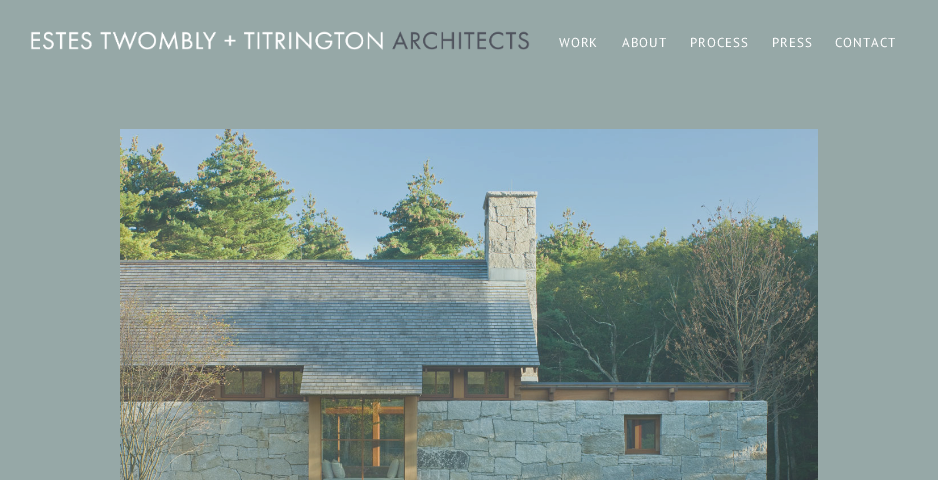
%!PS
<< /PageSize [938 480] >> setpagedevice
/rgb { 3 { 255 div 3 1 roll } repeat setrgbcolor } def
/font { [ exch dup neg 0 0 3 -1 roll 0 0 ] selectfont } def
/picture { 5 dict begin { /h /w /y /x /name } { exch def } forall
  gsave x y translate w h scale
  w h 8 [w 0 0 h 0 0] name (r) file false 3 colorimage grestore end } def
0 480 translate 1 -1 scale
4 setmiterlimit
150 168 167 rgb
0 0 938 480 rectfill
(img/1.rgb) 30 31 500 19 picture
(img/2.rgb) 120 129 698 351 picture
/PTSans-Regular 13 font
255 255 255 rgb
559 47 moveto 1 0 (WORK) ashow
622 47 moveto 1 0 (ABOUT) ashow
690 47 moveto 1 0 (PROCESS) ashow
772 47 moveto 1 0 (PRESS) ashow
835 47 moveto 1 0 (CONTACT) ashow
showpage
